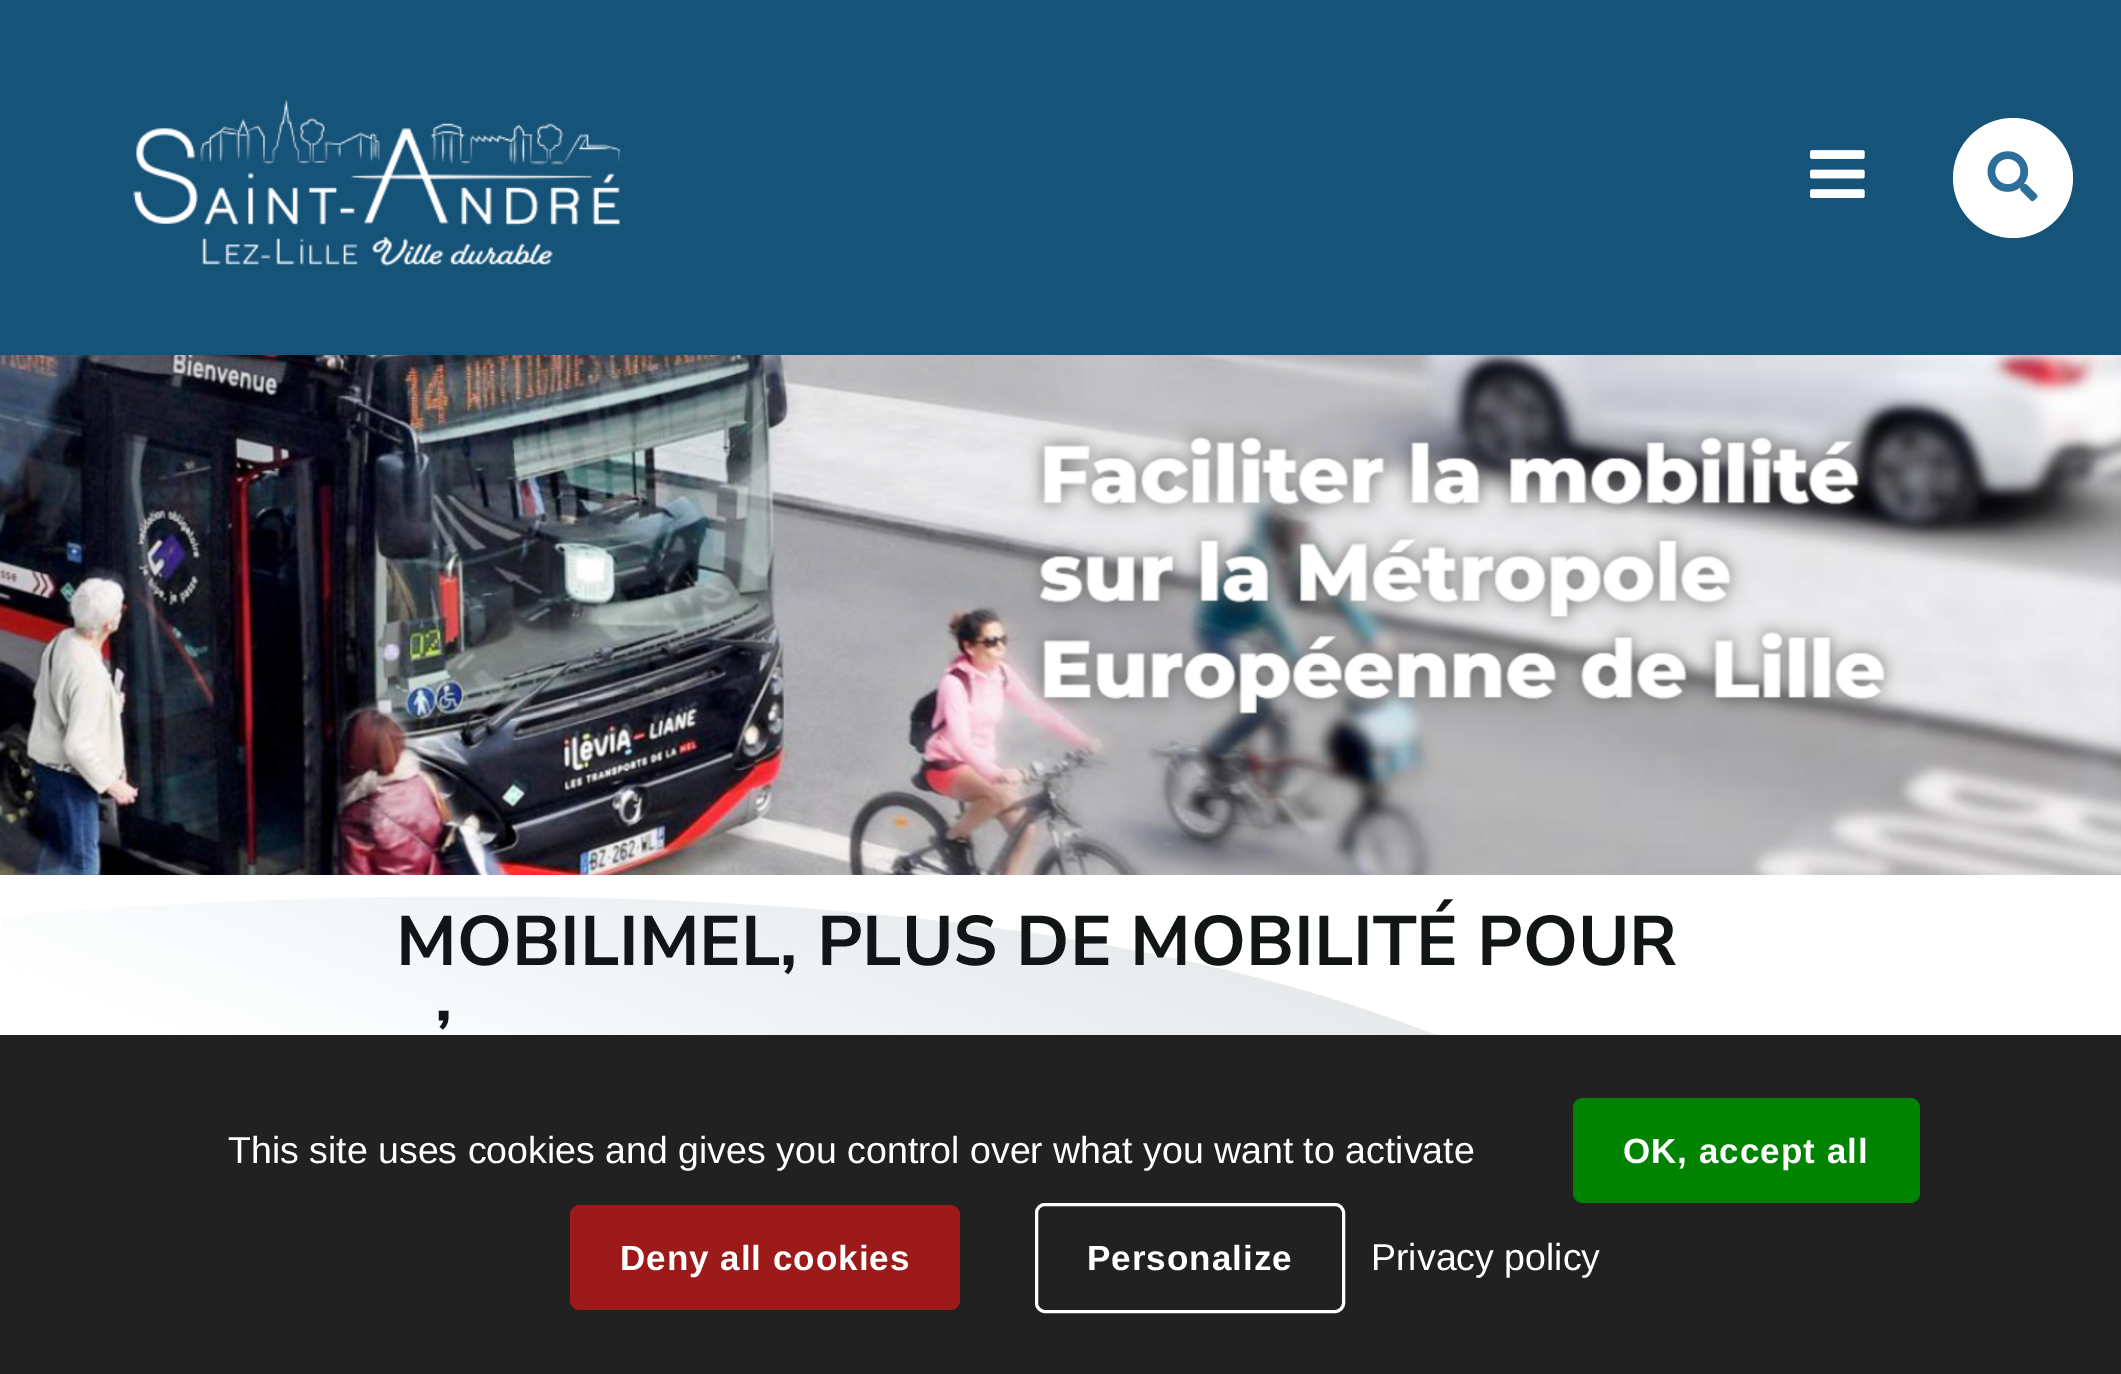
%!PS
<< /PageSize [2121 1374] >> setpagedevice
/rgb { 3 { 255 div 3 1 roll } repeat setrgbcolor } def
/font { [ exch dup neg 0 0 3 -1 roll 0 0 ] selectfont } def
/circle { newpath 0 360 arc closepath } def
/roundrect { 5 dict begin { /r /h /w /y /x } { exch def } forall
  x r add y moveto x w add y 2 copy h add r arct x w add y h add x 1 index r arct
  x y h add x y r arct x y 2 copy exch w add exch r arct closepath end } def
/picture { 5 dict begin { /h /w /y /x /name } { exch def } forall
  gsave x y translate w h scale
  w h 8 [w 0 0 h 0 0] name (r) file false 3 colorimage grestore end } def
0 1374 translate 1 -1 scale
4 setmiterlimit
255 255 255 rgb
0 0 2121 1374 rectfill
22 83 121 rgb
0 0 2121 355 rectfill
(img/1.rgb) 133 99 488 167 picture
(img/2.rgb) 1810 150 55 48 picture
255 255 255 rgb
2013 178 60 circle fill
(img/3.rgb) 1987 151 51 51 picture
(img/4.rgb) 0 355 2121 520 picture
(img/5.rgb) 2 896 1435 139 picture
33 33 33 rgb
0 1035 2121 339 rectfill
0 131 0 rgb
1573 1098 347 105 10 roundrect fill
156 26 26 rgb
570 1205 390 105 10 roundrect fill
255 255 255 rgb
3 setlinewidth
1036.5 1204.5 307 107 8.5 roundrect stroke
/NunitoSans-Bold 70 font
18 21 22 rgb
396 965 moveto (MOBILIMEL, PLUS DE MOBILITÉ POUR) show
435 1060 moveto (’) show
/LiberationSans-Regular 37.5 font
255 255 255 rgb
228 1163 moveto (This site uses cookies and gives you control over what you want to activate) show
/LiberationSans-Bold 35 font
1623 1163 moveto 1 0 (OK, accept all) ashow
620 1270 moveto 1 0 (Deny all cookies) ashow
1087 1270 moveto 1 0 (Personalize) ashow
/LiberationSans-Regular 37.5 font
1371 1270 moveto (Privacy policy) show
showpage
